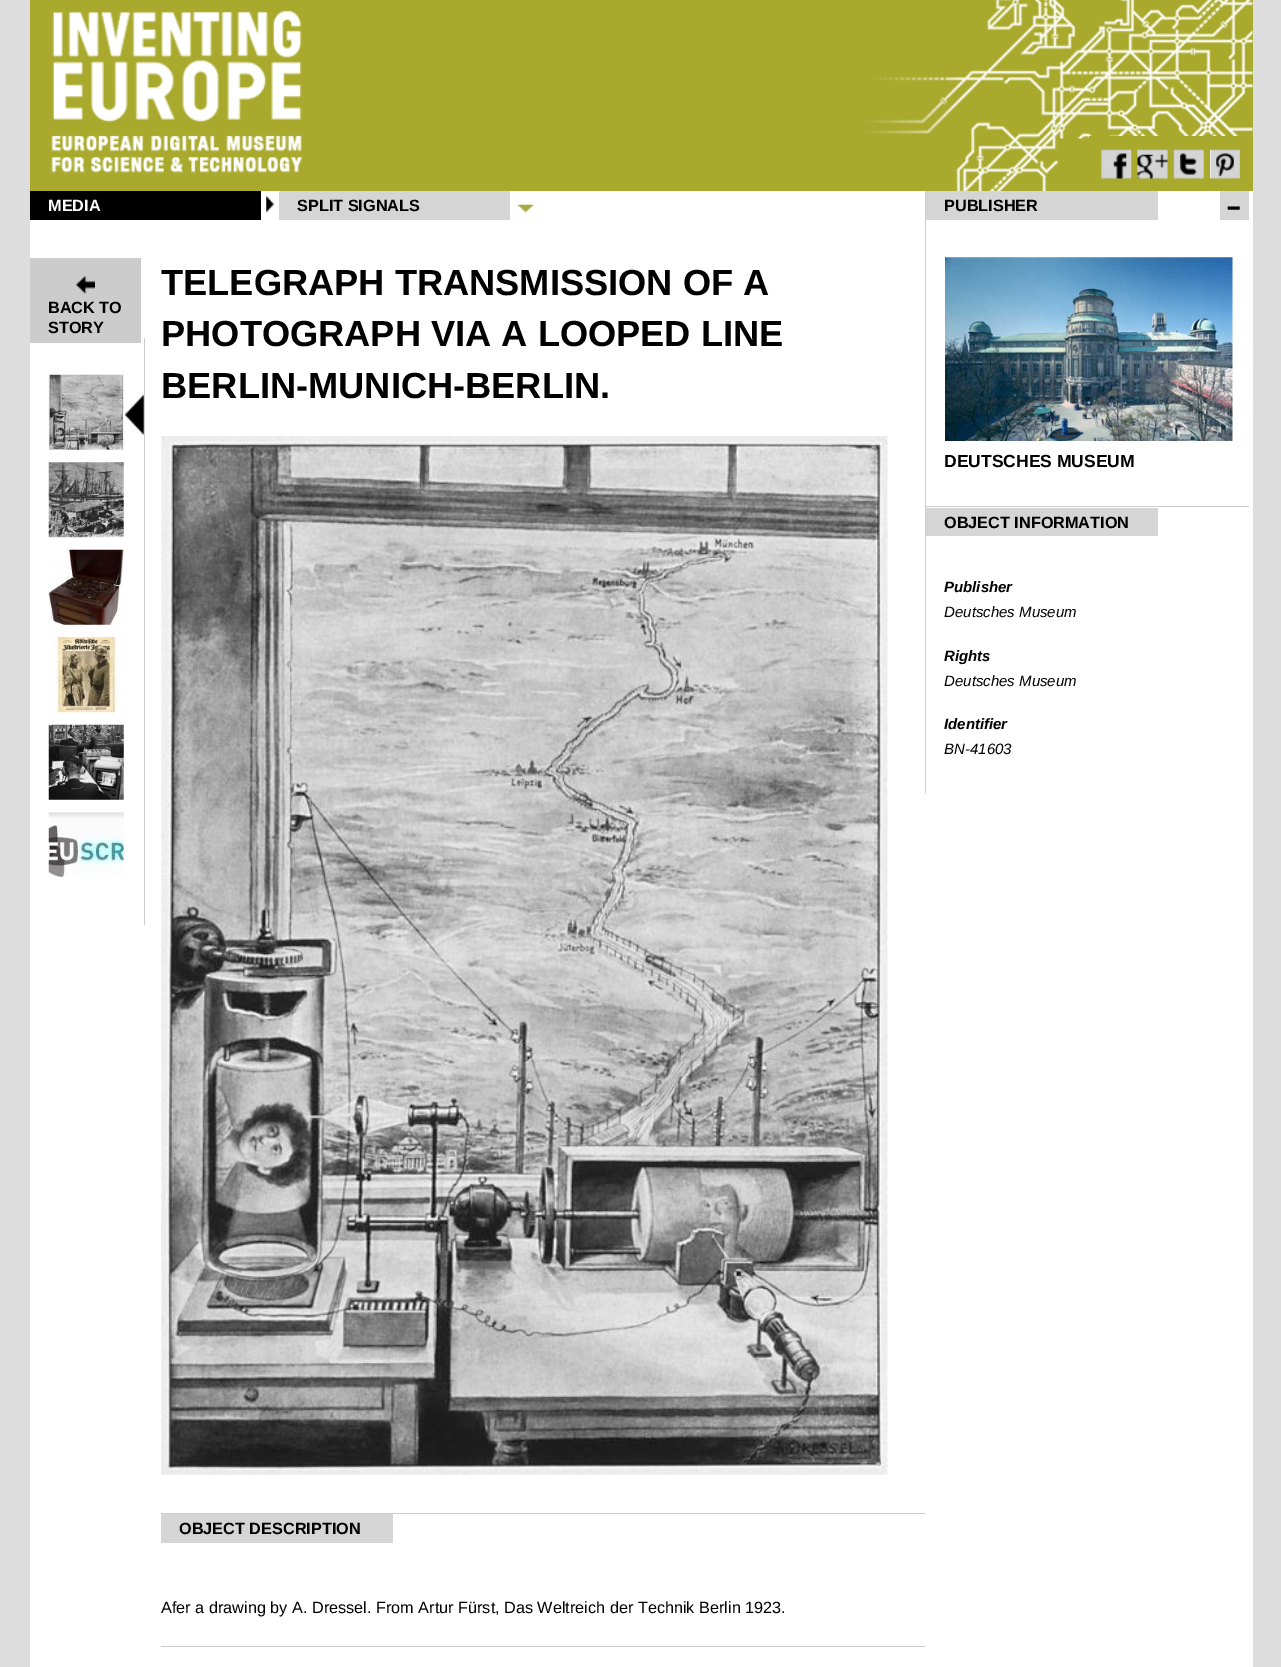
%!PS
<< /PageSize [1281 1667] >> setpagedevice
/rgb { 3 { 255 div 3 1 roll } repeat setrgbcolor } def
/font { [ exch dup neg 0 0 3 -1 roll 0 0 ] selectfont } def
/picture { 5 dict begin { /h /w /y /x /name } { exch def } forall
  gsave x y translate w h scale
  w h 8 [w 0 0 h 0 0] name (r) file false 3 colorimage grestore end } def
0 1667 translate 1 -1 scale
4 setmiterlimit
221 221 221 rgb
0 0 1281 1667 rectfill
255 255 255 rgb
30 191 1223 1476 rectfill
169 169 45 rgb
30 0 1223 191 rectfill
(img/1.rgb) 863 0 390 191 picture
(img/2.rgb) 51 10 252 163 picture
1089 136 164 3 rectfill
(img/3.rgb) 1101 149 31 30 picture
(img/4.rgb) 1137 149 31 30 picture
(img/5.rgb) 1173 149 31 30 picture
(img/6.rgb) 1210 149 30 30 picture
0 0 0 rgb
30 191 231 29 rectfill
(img/7.rgb) 266 196 8 17 picture
213 213 213 rgb
279 191 231 29 rectfill
(img/8.rgb) 517 204 17 9 picture
204 204 204 rgb
30 258 111 85 rectfill
(img/9.rgb) 76 276 19 18 picture
(img/10.rgb) 161 436 727 1039 picture
[
  [161 1513 764 1 204 204 204]
  [161 1514 232 29 213 213 213]
  [161 1646 764 1 204 204 204]
  [144 338 1 587 204 204 204]
] { aload pop rgb rectfill } forall
(img/11.rgb) 48 374 76 76 picture
(img/12.rgb) 125 394 19 41 picture
(img/13.rgb) 48 462 76 76 picture
(img/14.rgb) 48 549 76 76 picture
(img/15.rgb) 50 637 71 76 picture
(img/16.rgb) 48 724 76 76 picture
(img/17.rgb) 48 812 76 66 picture
[
  [925 191 1 602 204 204 204]
  [926 191 232 29 213 213 213]
  [1220 191 29 29 213 213 213]
] { aload pop rgb rectfill } forall
(img/18.rgb) 945 257 288 184 picture
204 204 204 rgb
926 506 323 1 rectfill
213 213 213 rgb
926 508 232 28 rectfill
/LiberationSans-Bold 16.25 font
255 255 255 rgb
48 211 moveto (MEDIA) show
0 0 0 rgb
[
  [(SPLIT SIGNALS) 297 211]
  [(BACK TO) 48 313]
  [(STORY) 48 333]
] { aload pop moveto show } forall
/LiberationSans-Bold 36.25 font
[
  [(TELEGRAPH TRANSMISSION OF A) 161 295]
  [(PHOTOGRAPH VIA A LOOPED LINE) 161 346]
  [(BERLIN-MUNICH-BERLIN.) 161 398]
] { aload pop moveto show } forall
/LiberationSans-Bold 16.25 font
179 1534 moveto (OBJECT DESCRIPTION) show
/LiberationSans-Regular 16.25 font
161 1613 moveto (Afer a drawing by A. Dressel. From Artur Fürst, Das Weltreich der Technik Berlin 1923.) show
/LiberationSans-Bold 16.25 font
944 211 moveto (PUBLISHER) show
/LiberationSerif-Regular 46 font
1226 219 moveto (-) show
/LiberationSans-Bold 17.5 font
944 467 moveto (DEUTSCHES MUSEUM) show
/LiberationSans-Bold 16.25 font
944 528 moveto (OBJECT INFORMATION) show
/LiberationSans-BoldItalic 15 font
944 592 moveto (Publisher) show
/LiberationSans-Italic 15 font
944 617 moveto (Deutsches Museum) show
/LiberationSans-BoldItalic 15 font
944 661 moveto (Rights) show
/LiberationSans-Italic 15 font
944 686 moveto (Deutsches Museum) show
/LiberationSans-BoldItalic 15 font
944 729 moveto (Identifier) show
/LiberationSans-Italic 15 font
944 754 moveto (BN-41603) show
showpage
